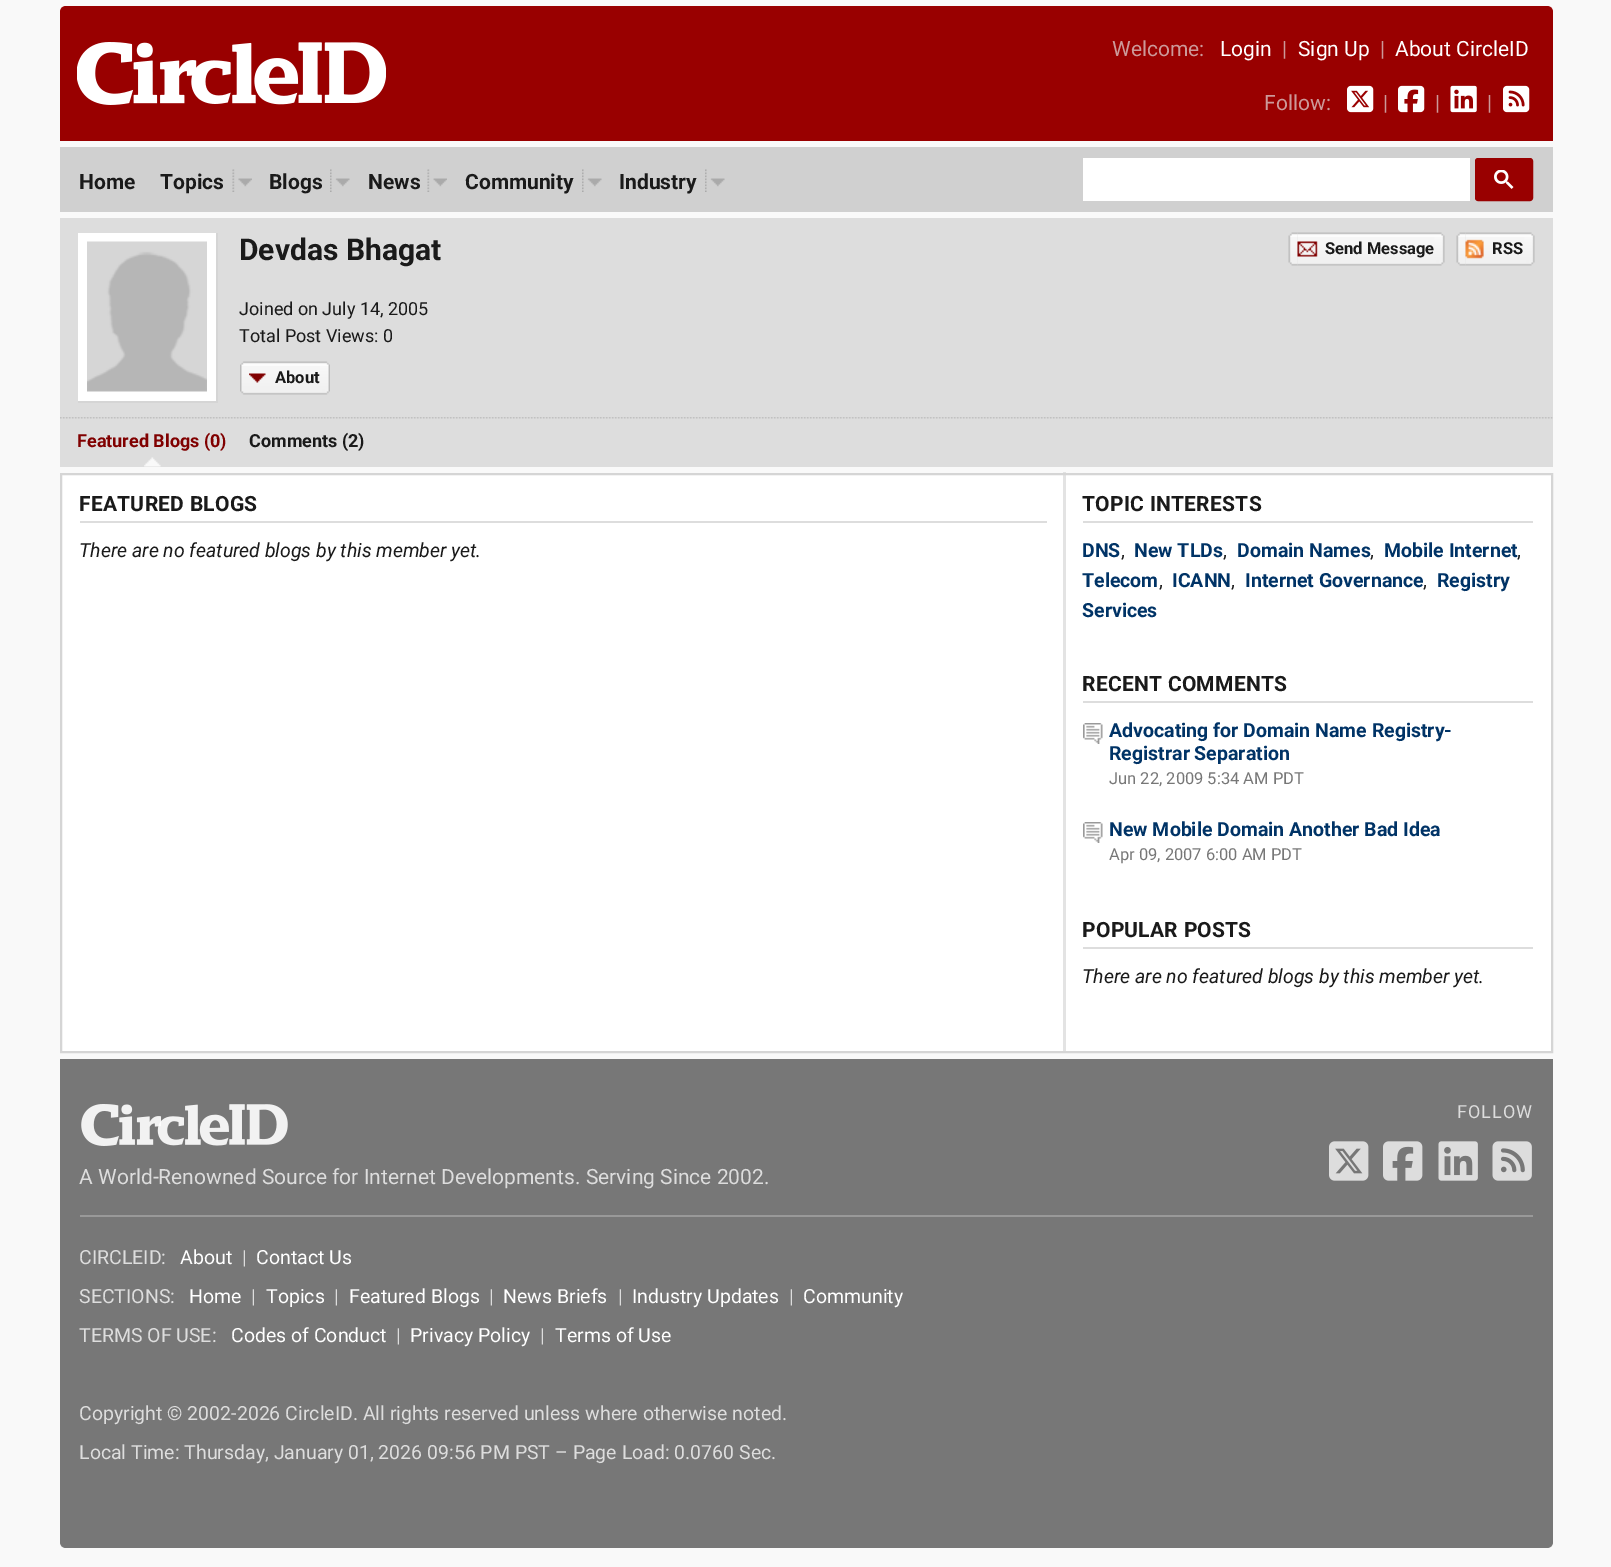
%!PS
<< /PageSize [1611 1567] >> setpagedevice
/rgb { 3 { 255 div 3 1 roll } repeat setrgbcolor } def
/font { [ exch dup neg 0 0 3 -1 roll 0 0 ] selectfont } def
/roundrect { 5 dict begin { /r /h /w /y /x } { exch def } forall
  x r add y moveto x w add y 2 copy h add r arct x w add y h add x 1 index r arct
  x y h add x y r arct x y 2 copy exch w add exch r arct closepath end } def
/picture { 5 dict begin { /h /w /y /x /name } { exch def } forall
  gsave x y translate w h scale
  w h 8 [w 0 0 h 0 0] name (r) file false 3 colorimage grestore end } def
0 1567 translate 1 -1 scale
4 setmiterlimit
249 249 249 rgb
0 0 1611 1567 rectfill
226 226 226 rgb
1063 472 3 1 rectfill
153 0 0 rgb
66 6 moveto 1547 6 lineto 1550.5 6 1553 8.5 1553 12 curveto 1553 141 lineto 60 141 lineto 60 12 lineto 60 8.5 62.5 6 66 6 curveto closepath fill
(img/1.rgb) 77 42 309 63 picture
(img/2.rgb) 1347 85 27 28 picture
(img/3.rgb) 1398 85 27 28 picture
(img/4.rgb) 1450 85 27 28 picture
(img/5.rgb) 1503 85 27 28 picture
208 208 208 rgb
60 147 1493 65 rectfill
(img/6.rgb) 232 169 20 23 picture
(img/7.rgb) 330 169 20 23 picture
(img/8.rgb) 427 169 20 23 picture
(img/7.rgb) 582 169 20 23 picture
(img/7.rgb) 705 169 20 23 picture
255 255 255 rgb
1083 158 387 43 rectfill
153 0 0 rgb
1476 159 56 41 2 roundrect gsave fill grestore
2 setlinewidth
stroke
(img/9.rgb) 1494 170 20 19 picture
[
  [60 218 1493 249 221 221 221]
  [78 233 138 168 255 255 255]
  [216 233 2 169 213 213 213]
  [78 401 140 2 213 213 213]
] { aload pop rgb rectfill } forall
(img/10.rgb) 87 241 120 151 picture
(img/11.rgb) 240 361 9 5 picture
(img/12.rgb) 249 361 81 5 picture
(img/13.rgb) 240 366 9 29 picture
(img/14.rgb) 249 366 81 29 picture
(img/15.rgb) 249 373 17 10 picture
(img/16.rgb) 1288 232 10 5 picture
(img/17.rgb) 1297 232 148 5 picture
(img/18.rgb) 1288 237 10 29 picture
(img/19.rgb) 1297 237 148 29 picture
(img/20.rgb) 1297 241 21 16 picture
(img/16.rgb) 1456 232 10 5 picture
(img/21.rgb) 1465 232 70 5 picture
(img/18.rgb) 1456 237 10 29 picture
(img/22.rgb) 1465 237 70 29 picture
(img/23.rgb) 1465 239 19 20 picture
(img/24.rgb) 60 417 1493 2 picture
(img/25.rgb) 144 457 17 10 picture
255 255 255 rgb
62 475 1489 576 rectfill
227 227 227 rgb
1063 473 3 580 rectfill
213 213 213 rgb
61 474 1491 578 rectstroke
[
  [80 521 967 2 221 221 221]
  [1083 521 450 2 221 221 221]
  [1083 701 450 2 221 221 221]
] { aload pop rgb rectfill } forall
(img/26.rgb) 1083 723 20 21 picture
(img/26.rgb) 1083 822 20 21 picture
1083 947 450 2 rectfill
119 119 119 rgb
60 1059 moveto 1553 1059 lineto 1553 1542 lineto 1553 1545.5 1550.5 1548 1547 1548 curveto 66 1548 lineto 62.5 1548 60 1545.5 60 1542 curveto closepath fill
(img/27.rgb) 1329 1141 40 40 picture
(img/28.rgb) 1383 1141 40 40 picture
(img/29.rgb) 1438 1141 40 40 picture
(img/30.rgb) 1492 1141 40 40 picture
(img/31.rgb) 81 1104 207 42 picture
153 153 153 rgb
80 1215 1453 2 rectfill
/Roboto-Regular 21 font
204 153 153 rgb
1112 56 moveto (Welcome:) show
255 255 255 rgb
1220 56 moveto (Login) show
204 153 153 rgb
1282 56 moveto (|) show
255 255 255 rgb
1298 56 moveto (Sign Up) show
204 153 153 rgb
1380 56 moveto (|) show
255 255 255 rgb
1395 56 moveto (About CircleID) show
204 153 153 rgb
[
  [(Follow:) 1264 110]
  [(|) 1383 110]
  [(|) 1435 110]
  [(|) 1487 110]
] { aload pop moveto show } forall
/Roboto-Bold 21 font
26 26 26 rgb
[
  [(Home) 79 189]
  [(Topics) 160 189]
  [(Blogs) 269 189]
  [(News) 368 189]
  [(Community) 465 189]
  [(Industry) 619 189]
] { aload pop moveto show } forall
/Roboto-Bold 30 font
239 260 moveto (Devdas Bhagat) show
/Roboto-Regular 18 font
239 315 moveto (Joined on July 14, 2005) show
239 342 moveto (Total Post Views: 0) show
/Roboto-Bold 16.5 font
[
  [(About) 275 383]
  [(Send Message) 1325 254]
  [(RSS) 1492 254]
] { aload pop moveto show } forall
/Roboto-Bold 18 font
128 0 0 rgb
77 447 moveto (Featured Blogs \(0\)) show
26 26 26 rgb
249 447 moveto (Comments \(2\)) show
/Roboto-Bold 21 font
79 511 moveto 0.25 0 (FEATURED BLOGS) ashow
/Roboto-Italic 19.5 font
79 557 moveto (There are no featured blogs by this member yet.) show
/Roboto-Bold 21 font
1082 511 moveto 0.25 0 (TOPIC INTERESTS) ashow
/Roboto-Bold 19.5 font
0 51 102 rgb
1082 557 moveto (DNS) show
/Roboto-Regular 19.5 font
26 26 26 rgb
1121 557 moveto (,) show
/Roboto-Bold 19.5 font
0 51 102 rgb
1134 557 moveto (New TLDs) show
/Roboto-Regular 19.5 font
26 26 26 rgb
1223 557 moveto (,) show
/Roboto-Bold 19.5 font
0 51 102 rgb
1237 557 moveto (Domain Names) show
/Roboto-Regular 19.5 font
26 26 26 rgb
1370 557 moveto (,) show
/Roboto-Bold 19.5 font
0 51 102 rgb
1384 557 moveto (Mobile Internet) show
/Roboto-Regular 19.5 font
26 26 26 rgb
1517 557 moveto (,) show
/Roboto-Bold 19.5 font
0 51 102 rgb
1082 587 moveto (Telecom) show
/Roboto-Regular 19.5 font
26 26 26 rgb
1159 587 moveto (,) show
/Roboto-Bold 19.5 font
0 51 102 rgb
1172 587 moveto (ICANN) show
/Roboto-Regular 19.5 font
26 26 26 rgb
1231 587 moveto (,) show
/Roboto-Bold 19.5 font
0 51 102 rgb
1245 587 moveto (Internet Governance) show
/Roboto-Regular 19.5 font
26 26 26 rgb
1423 587 moveto (,) show
/Roboto-Bold 19.5 font
0 51 102 rgb
1437 587 moveto (Registry) show
1082 617 moveto (Services) show
/Roboto-Bold 21 font
26 26 26 rgb
1082 691 moveto 0.25 0 (RECENT COMMENTS) ashow
/Roboto-Bold 19.5 font
0 51 102 rgb
1109 737 moveto (Advocating for Domain Name Registry-) show
1109 760 moveto (Registrar Separation) show
/Roboto-Regular 16.5 font
119 119 119 rgb
1109 784 moveto (Jun 22, 2009 5:34 AM PDT) show
/Roboto-Bold 19.5 font
0 51 102 rgb
1109 836 moveto (New Mobile Domain Another Bad Idea) show
/Roboto-Regular 16.5 font
119 119 119 rgb
1109 860 moveto (Apr 09, 2007 6:00 AM PDT) show
/Roboto-Bold 21 font
26 26 26 rgb
1082 937 moveto 0.25 0 (POPULAR POSTS) ashow
/Roboto-Italic 19.5 font
1082 983 moveto (There are no featured blogs by this member yet.) show
/Roboto-Regular 18 font
221 221 221 rgb
1457 1118 moveto 1 0 (FOLLOW) ashow
/Roboto-Regular 21 font
79 1184 moveto (A World-Renowned Source for Internet Developments. Serving Since 2002.) show
/Roboto-Regular 19.5 font
79 1264 moveto (CIRCLEID:) show
255 255 255 rgb
180 1264 moveto (About) show
221 221 221 rgb
242 1264 moveto (|) show
255 255 255 rgb
256 1264 moveto (Contact Us) show
221 221 221 rgb
79 1303 moveto (SECTIONS:) show
255 255 255 rgb
189 1303 moveto (Home) show
221 221 221 rgb
251 1303 moveto (|) show
255 255 255 rgb
266 1303 moveto (Topics) show
221 221 221 rgb
334 1303 moveto (|) show
255 255 255 rgb
349 1303 moveto (Featured Blogs) show
221 221 221 rgb
489 1303 moveto (|) show
255 255 255 rgb
503 1303 moveto (News Briefs) show
221 221 221 rgb
618 1303 moveto (|) show
255 255 255 rgb
632 1303 moveto (Industry Updates) show
221 221 221 rgb
789 1303 moveto (|) show
255 255 255 rgb
803 1303 moveto (Community) show
221 221 221 rgb
79 1342 moveto (TERMS OF USE:) show
255 255 255 rgb
231 1342 moveto (Codes of Conduct) show
221 221 221 rgb
396 1342 moveto (|) show
255 255 255 rgb
410 1342 moveto (Privacy Policy) show
221 221 221 rgb
540 1342 moveto (|) show
255 255 255 rgb
555 1342 moveto (Terms of Use) show
221 221 221 rgb
79 1420 moveto (Copyright © 2002-2026 CircleID. All rights reserved unless where otherwise noted.) show
79 1459 moveto (Local Time: Thursday, January 01, 2026 09:56 PM PST – Page Load: 0.0760 Sec.) show
showpage
